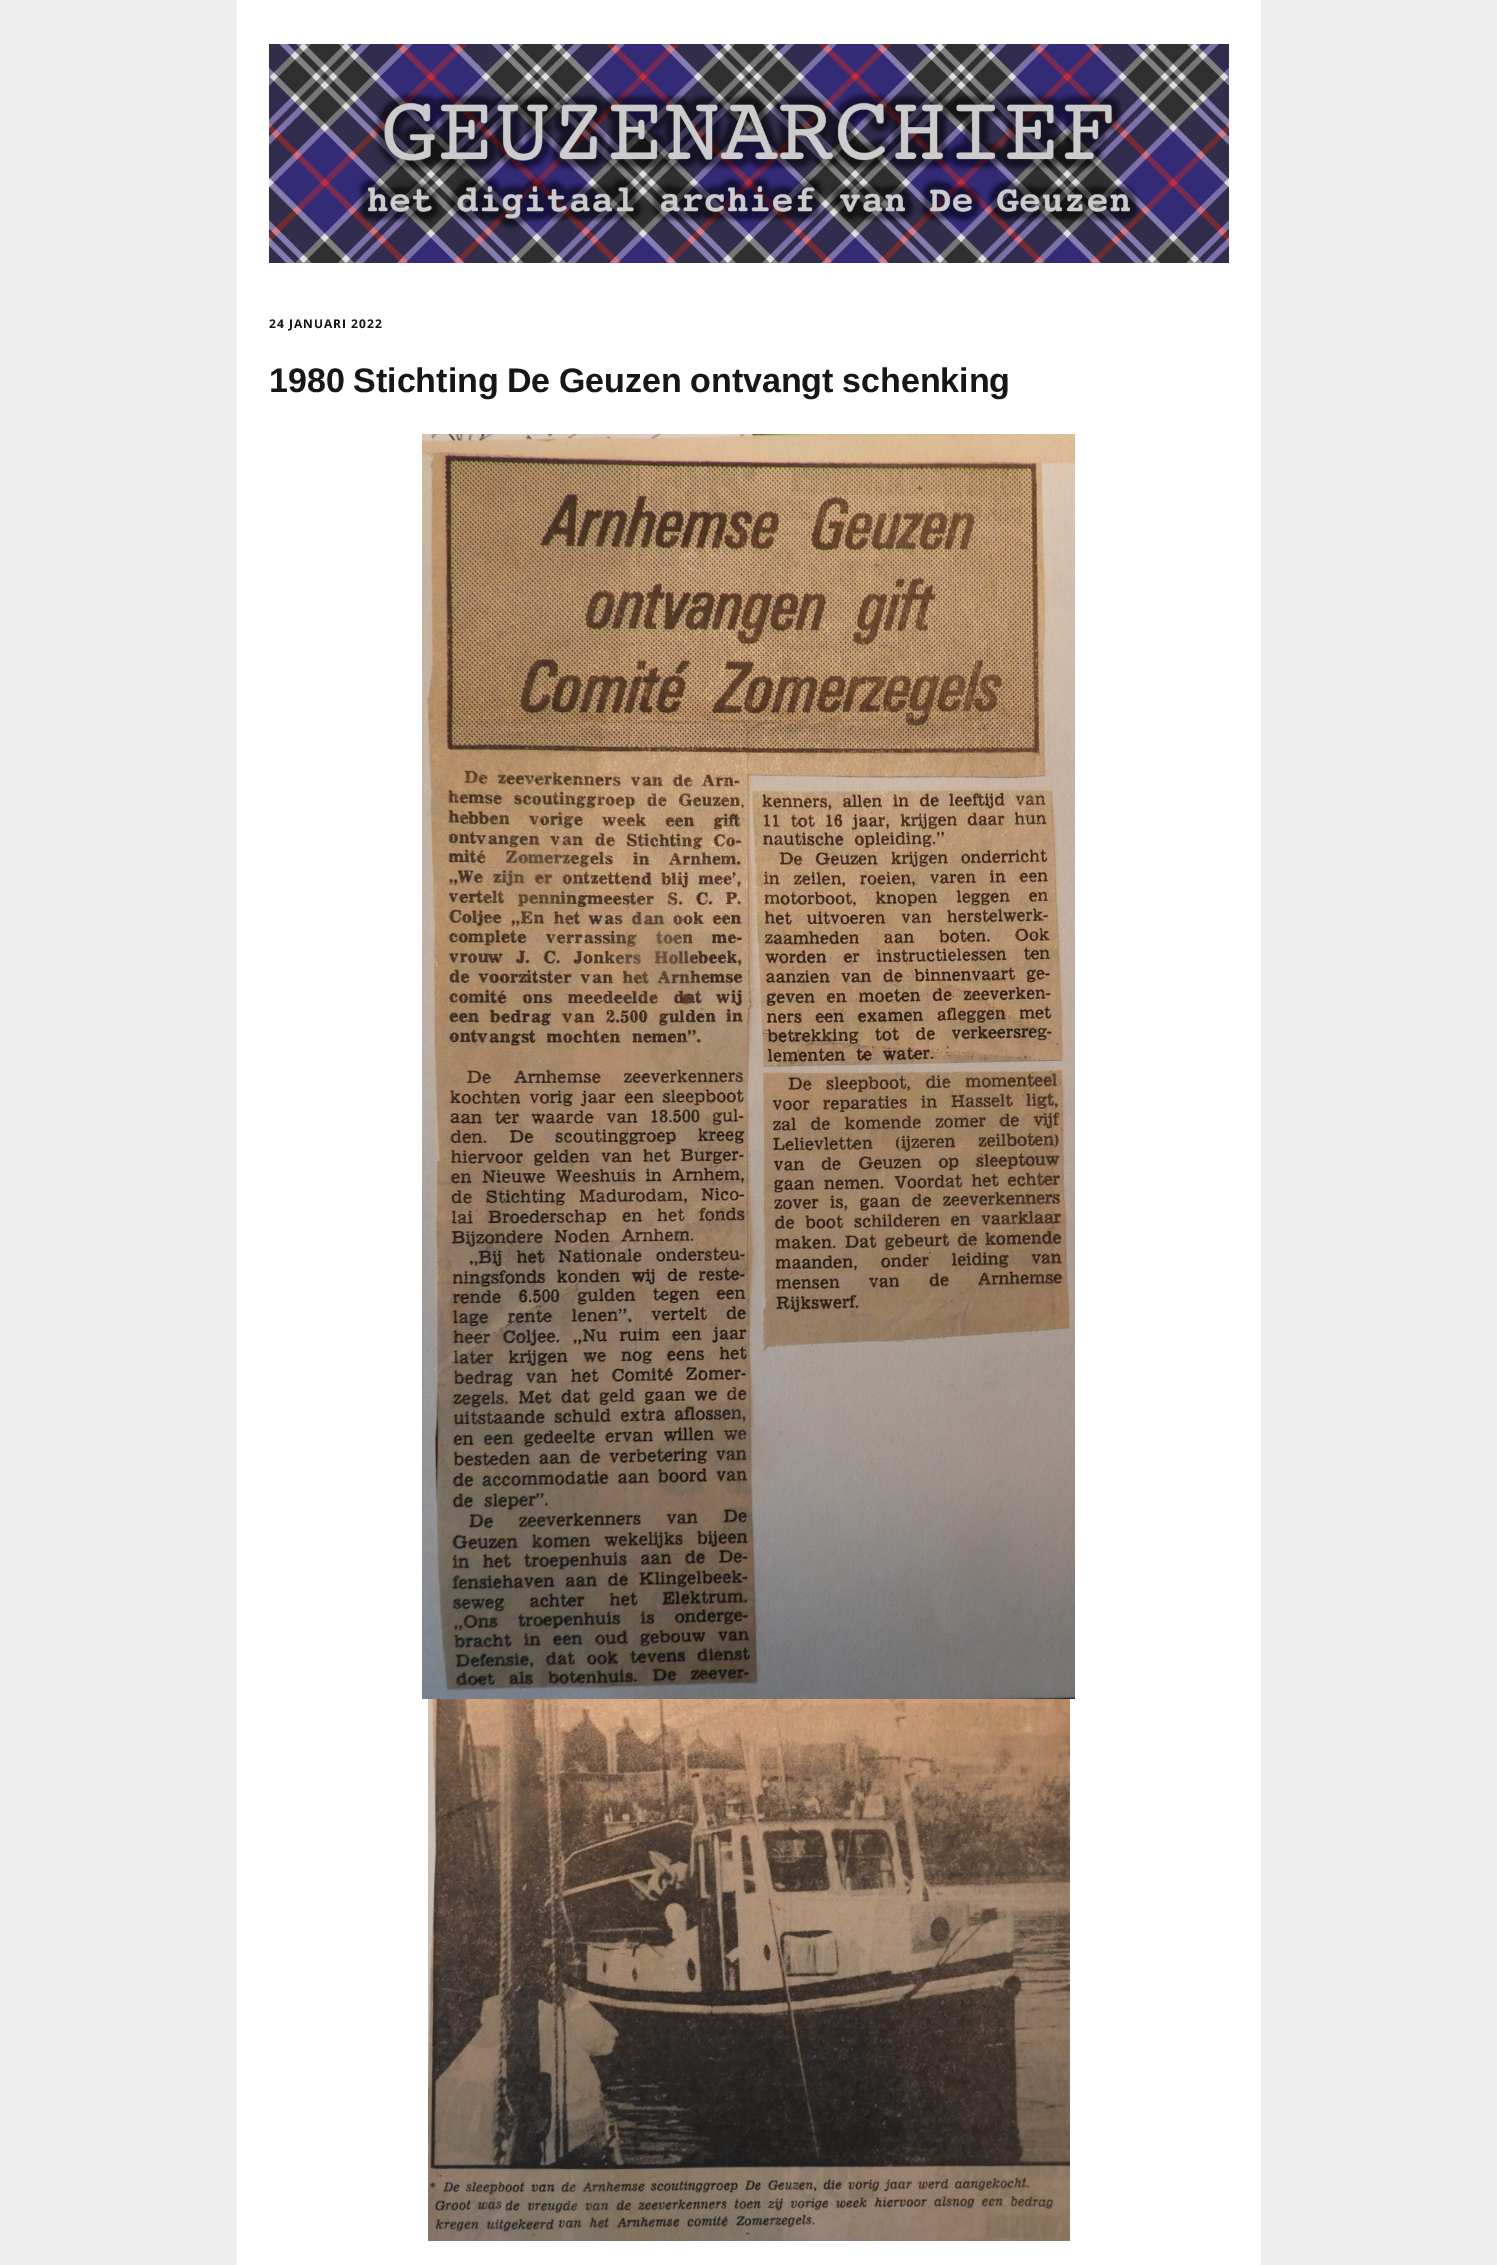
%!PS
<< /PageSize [1497 2265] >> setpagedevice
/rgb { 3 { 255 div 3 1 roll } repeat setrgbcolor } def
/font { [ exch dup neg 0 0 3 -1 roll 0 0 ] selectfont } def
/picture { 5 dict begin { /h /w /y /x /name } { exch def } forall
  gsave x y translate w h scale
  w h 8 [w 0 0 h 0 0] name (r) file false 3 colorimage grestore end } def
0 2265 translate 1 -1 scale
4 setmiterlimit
238 238 238 rgb
0 0 1497 2265 rectfill
255 255 255 rgb
237 0 1024 2265 rectfill
(img/1.rgb) 269 44 960 219 picture
(img/2.rgb) 422 434 653 1265 picture
(img/3.rgb) 428 1699 642 542 picture
/OpenSans-Bold 12 font
23 23 23 rgb
269 328 moveto 1 0 (24 JANUARI 2022) ashow
/LiberationSans-Bold 34 font
269 392 moveto -1 0 32 (1980 Stichting De Geuzen ontvangt schenking) widthshow
showpage
